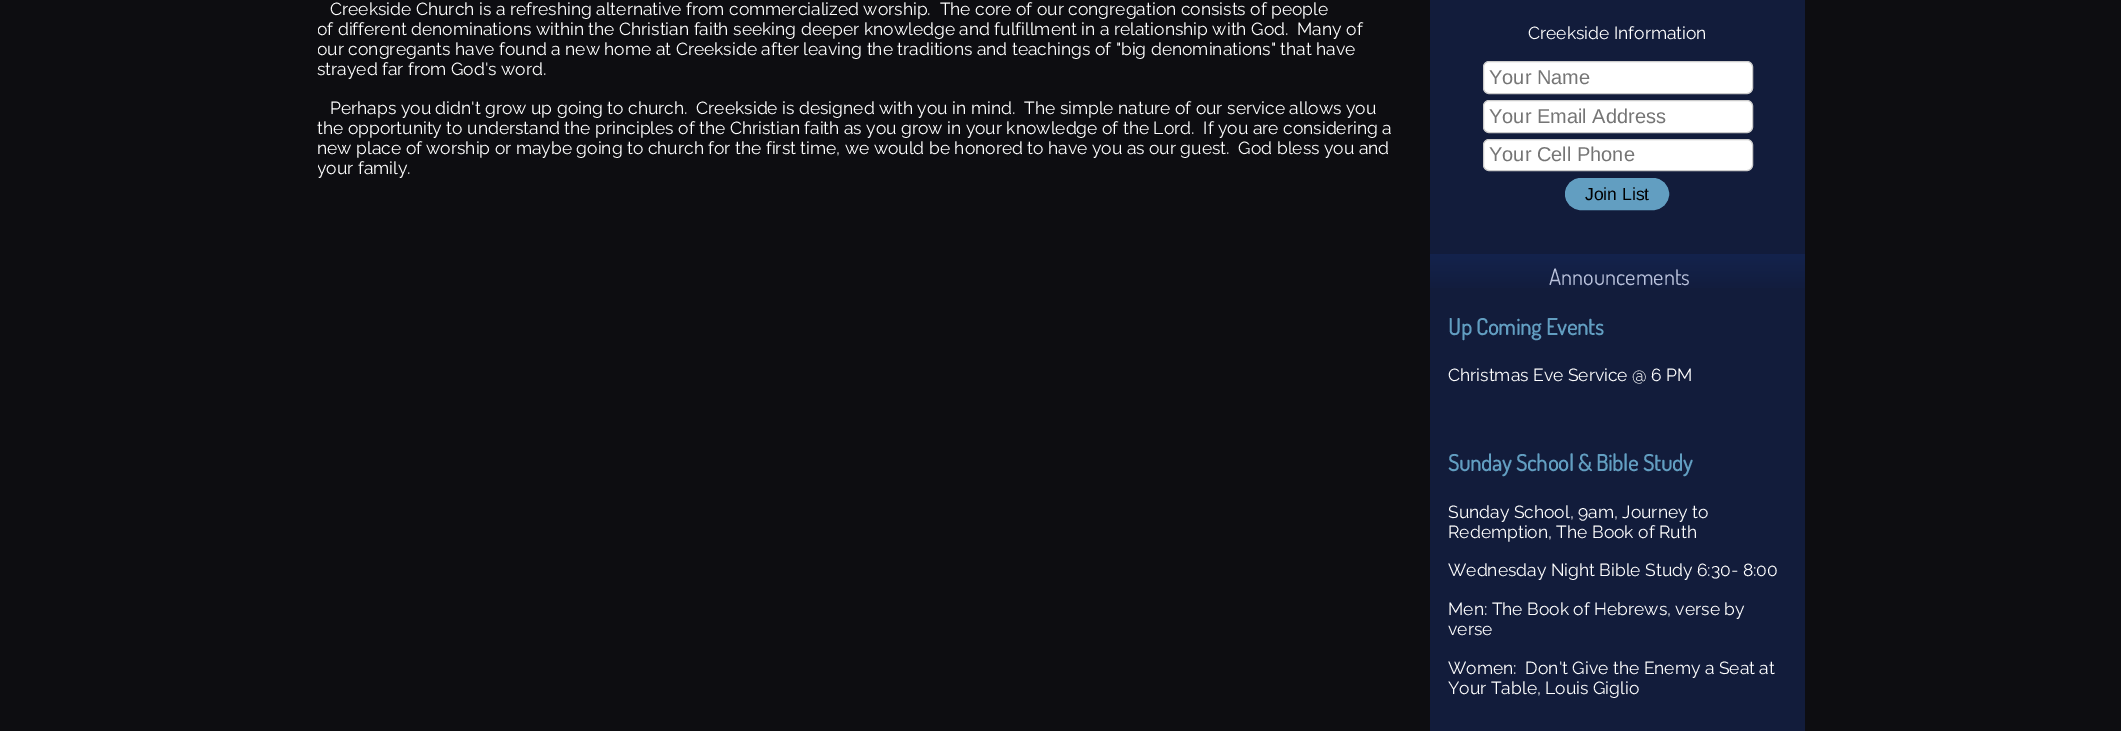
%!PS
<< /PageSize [2121 731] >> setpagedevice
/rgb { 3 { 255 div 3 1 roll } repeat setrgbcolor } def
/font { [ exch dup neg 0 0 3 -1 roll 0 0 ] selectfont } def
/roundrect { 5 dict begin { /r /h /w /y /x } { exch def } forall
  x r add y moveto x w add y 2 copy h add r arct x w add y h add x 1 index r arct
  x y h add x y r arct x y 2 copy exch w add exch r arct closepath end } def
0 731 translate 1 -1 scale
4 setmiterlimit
13 13 17 rgb
0 0 2121 731 rectfill
18 28 59 rgb
1430 0 375 731 rectfill
255 255 255 rgb
1483.5 61.5 269 32 5.5 roundrect gsave fill grestore
204 204 204 rgb
stroke
255 255 255 rgb
1483.5 100.5 269 32 5.5 roundrect gsave fill grestore
204 204 204 rgb
stroke
255 255 255 rgb
1483.5 139.5 269 31 5.5 roundrect gsave fill grestore
204 204 204 rgb
stroke
98 158 193 rgb
1565.5 178.5 103 31 15.5 roundrect gsave fill grestore
stroke
gsave 1430 254 moveto 1805 254 lineto 1805 288 lineto 1430 288 lineto closepath clip newpath
<< /ShadingType 2 /ColorSpace /DeviceRGB /Coords [1618 254 1618 294] /Extend [true true] /Function << /FunctionType 2 /Domain [0 1] /C0 [0.078 0.137 0.302] /C1 [0.071 0.11 0.231] /N 1 >> >> shfill grestore
/Raleway-Regular 17.5 font
255 255 255 rgb
330 15 moveto (Creekside Church is a refreshing alternative from commercialized worship.  The core of our congregation consists of people) show
gsave
318 0 1075 196 rectclip
317 35 moveto (of different denominations within the Christian faith seeking deeper knowledge and fulfillment in a relationship with God.  Many of) show
317 55 moveto (our congregants have found a new home at Creekside after leaving the traditions and teachings of "big denominations" that have) show
grestore
[
  [(strayed far from God's word.) 317 75]
  [(Perhaps you didn't grow up going to church.  Creekside is designed with you in mind.  The simple nature of our service allows you) 330 114]
  [(the opportunity to understand the principles of the Christian faith as you grow in your knowledge of the Lord.  If you are considering a) 317 134]
  [(new place of worship or maybe going to church for the first time, we would be honored to have you as our guest.  God bless you and) 317 154]
] { aload pop moveto show } forall
gsave
318 0 1075 196 rectclip
317 174 moveto (your family.) show
grestore
1528 39 moveto (Creekside Information) show
/LiberationSans-Regular 20 font
117 117 117 rgb
[
  [(Your Name) 1489 84]
  [(Your Email Address) 1489 123]
  [(Your Cell Phone) 1489 161]
] { aload pop moveto show } forall
/LiberationSans-Regular 17.5 font
0 0 0 rgb
1585 200 moveto (Join List) show
/Dosis-Regular 22.5 font
186 194 220 rgb
1549 285 moveto (Announcements) show
/Dosis-Bold 22.5 font
98 158 193 rgb
1448 335 moveto (Up Coming Events) show
/Raleway-Regular 17.5 font
255 255 255 rgb
1448 381 moveto (Christmas Eve Service @ 6 PM) show
/Dosis-Bold 22.5 font
98 158 193 rgb
1448 471 moveto (Sunday School & Bible Study) show
/Raleway-Regular 17.5 font
255 255 255 rgb
[
  [(Sunday School, 9am, Journey to) 1448 518]
  [(Redemption, The Book of Ruth) 1448 538]
  [(Wednesday Night Bible Study 6:30- 8:00) 1448 576]
  [(Men: The Book of Hebrews, verse by) 1448 615]
  [(verse) 1448 635]
  [(Women:  Don't Give the Enemy a Seat at) 1448 674]
  [(Your Table, Louis Giglio) 1448 694]
] { aload pop moveto show } forall
showpage
